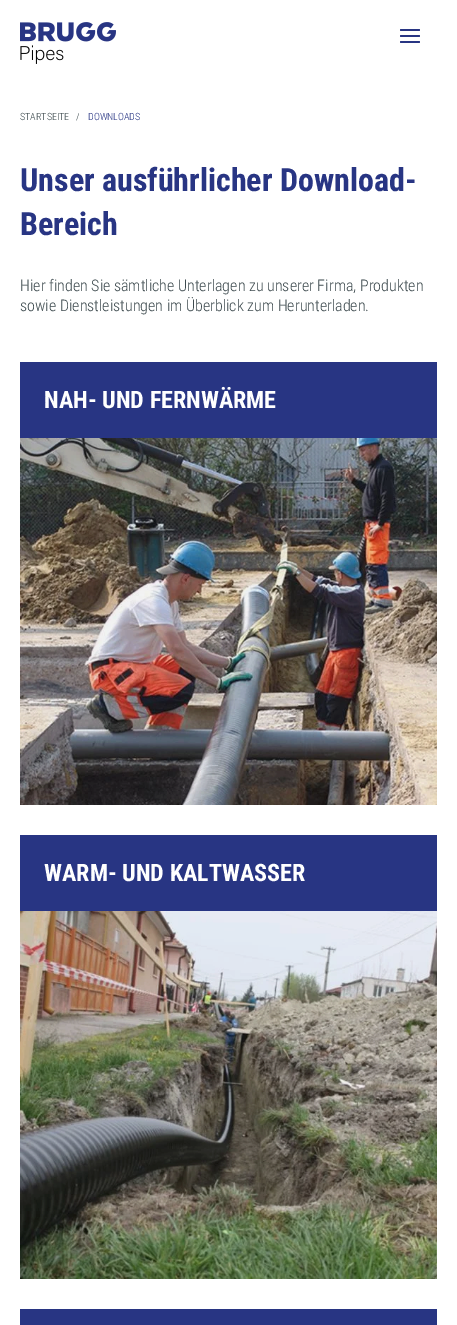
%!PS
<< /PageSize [457 1325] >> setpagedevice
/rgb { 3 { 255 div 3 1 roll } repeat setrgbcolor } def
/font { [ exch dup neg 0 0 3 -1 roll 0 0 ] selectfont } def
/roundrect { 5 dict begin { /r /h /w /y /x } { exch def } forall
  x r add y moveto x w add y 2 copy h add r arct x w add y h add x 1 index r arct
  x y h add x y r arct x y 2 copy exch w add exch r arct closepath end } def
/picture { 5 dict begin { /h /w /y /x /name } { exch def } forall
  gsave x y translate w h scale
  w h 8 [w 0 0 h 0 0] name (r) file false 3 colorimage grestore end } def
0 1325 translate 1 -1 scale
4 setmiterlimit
255 255 255 rgb
0 0 457 1325 rectfill
(img/1.rgb) 20 22 96 42 picture
40 53 131 rgb
400 29 20 2 1 roundrect fill
400 35 20 2 1 roundrect fill
400 41 20 2 1 roundrect fill
20 362 417 76 rectfill
(img/2.rgb) 20 438 417 367 picture
20 835 417 76 rectfill
(img/3.rgb) 20 911 417 368 picture
20 1309 417 16 rectfill
/RobotoCondensed-Light 10 font
62 75 79 rgb
20 120 moveto (STARTSEITE) show
76 120 moveto (/) show
40 53 131 rgb
88 120 moveto (DOWNLOADS) show
/RobotoCondensed-Bold 32 font
20 191 moveto (Unser ausführlicher Download-) show
20 235 moveto (Bereich) show
/RobotoCondensed-Light 16 font
62 75 79 rgb
20 291 moveto (Hier finden Sie sämtliche Unterlagen zu unserer Firma, Produkten) show
20 311 moveto (sowie Dienstleistungen im Überblick zum Herunterladen.) show
/RobotoCondensed-Bold 24 font
255 255 255 rgb
44 408 moveto (NAH- UND FERNWÄRME) show
44 881 moveto (WARM- UND KALTWASSER) show
showpage
